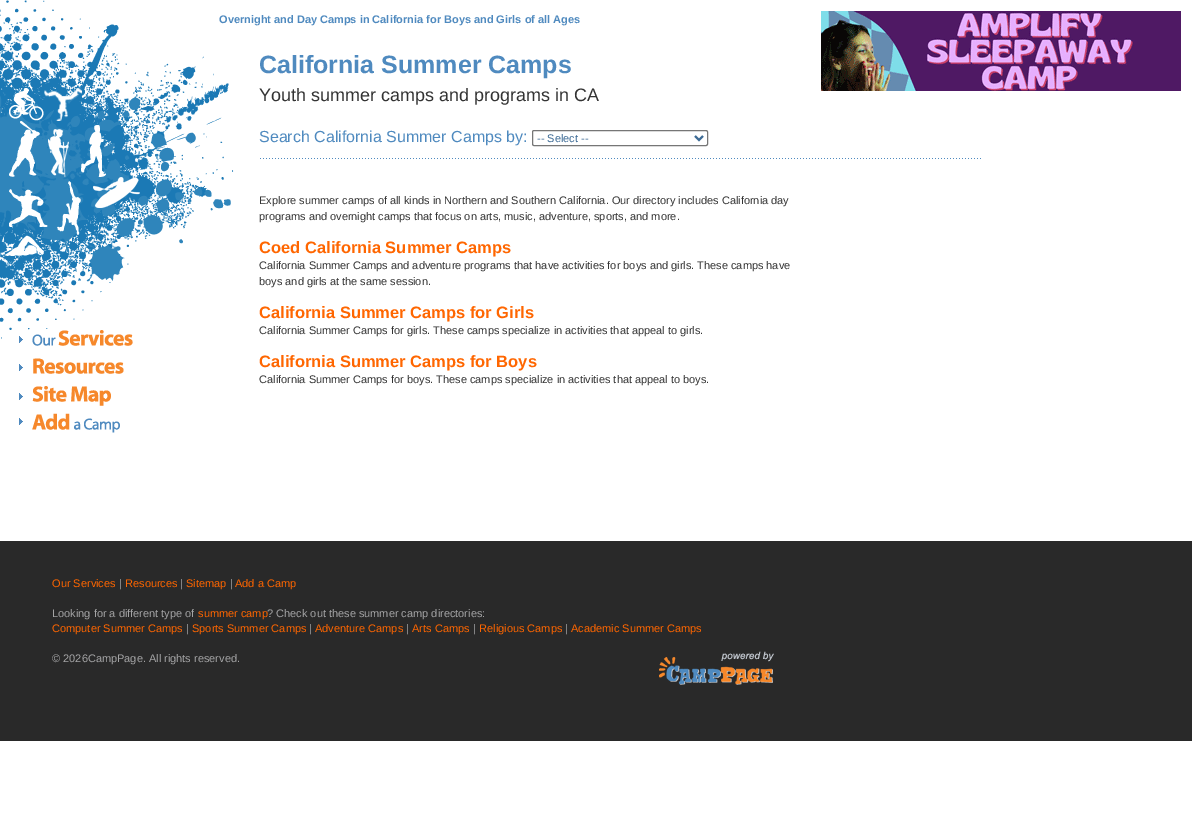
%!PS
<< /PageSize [1192 817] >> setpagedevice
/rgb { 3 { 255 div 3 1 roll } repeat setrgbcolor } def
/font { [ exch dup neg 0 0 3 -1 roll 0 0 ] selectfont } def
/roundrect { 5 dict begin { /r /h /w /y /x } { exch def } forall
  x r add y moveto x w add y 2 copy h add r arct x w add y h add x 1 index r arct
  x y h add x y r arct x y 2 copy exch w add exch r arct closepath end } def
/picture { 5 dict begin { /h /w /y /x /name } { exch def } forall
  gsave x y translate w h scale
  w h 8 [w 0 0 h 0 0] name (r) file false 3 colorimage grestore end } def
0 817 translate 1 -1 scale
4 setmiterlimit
255 255 255 rgb
0 0 1192 817 rectfill
(img/1.rgb) 0 0 234 339 picture
(img/2.rgb) 821 11 360 80 picture
(img/3.rgb) 19 330 114 103 picture
118 118 118 rgb
532.5 130.5 175 15 1.5 roundrect stroke
61 107 149 rgb
2 setlinewidth
695 136 moveto 699 140 lineto 703 136 lineto stroke
(img/4.rgb) 260 158 721 1 picture
41 41 41 rgb
0 541 1192 200 rectfill
(img/5.rgb) 659 651 115 34 picture
/LiberationSans-Bold 11 font
79 138 191 rgb
219 23 moveto (Overnight and Day Camps in California for Boys and Girls of all Ages) show
/LiberationSans-Bold 25 font
259 73 moveto (California Summer Camps) show
/LiberationSans-Regular 18 font
51 51 51 rgb
259 101 moveto (Youth summer camps and programs in CA) show
/LiberationSans-Regular 16 font
79 138 191 rgb
259 142 moveto (Search California Summer Camps by:) show
/LiberationSans-Regular 11 font
61 107 149 rgb
537 142 moveto (-- Select --) show
51 51 51 rgb
259 204 moveto (Explore summer camps of all kinds in Northern and Southern California. Our directory includes California day) show
259 220 moveto (programs and overnight camps that focus on arts, music, adventure, sports, and more.) show
/LiberationSans-Bold 16.5 font
255 102 0 rgb
259 253 moveto (Coed California Summer Camps) show
/LiberationSans-Regular 11 font
51 51 51 rgb
259 269 moveto (California Summer Camps and adventure programs that have activities for boys and girls. These camps have) show
259 285 moveto (boys and girls at the same session.) show
/LiberationSans-Bold 16.5 font
255 102 0 rgb
259 318 moveto (California Summer Camps for Girls) show
/LiberationSans-Regular 11 font
51 51 51 rgb
259 334 moveto (California Summer Camps for girls. These camps specialize in activities that appeal to girls.) show
/LiberationSans-Bold 16.5 font
255 102 0 rgb
259 367 moveto (California Summer Camps for Boys) show
/LiberationSans-Regular 11 font
51 51 51 rgb
259 383 moveto (California Summer Camps for boys. These camps specialize in activities that appeal to boys.) show
255 102 0 rgb
52 587 moveto (Our Services) show
164 164 165 rgb
119 587 moveto (|) show
255 102 0 rgb
125 587 moveto (Resources) show
164 164 165 rgb
180 587 moveto (|) show
255 102 0 rgb
186 587 moveto (Sitemap) show
164 164 165 rgb
230 587 moveto (|) show
255 102 0 rgb
235 587 moveto (Add a Camp) show
164 164 165 rgb
52 617 moveto (Looking for a different type of) show
255 102 0 rgb
198 617 moveto (summer camp) show
164 164 165 rgb
267 617 moveto (? Check out these summer camp directories:) show
255 102 0 rgb
52 632 moveto (Computer Summer Camps) show
164 164 165 rgb
186 632 moveto (|) show
255 102 0 rgb
192 632 moveto (Sports Summer Camps) show
164 164 165 rgb
309 632 moveto (|) show
255 102 0 rgb
315 632 moveto (Adventure Camps) show
164 164 165 rgb
406 632 moveto (|) show
255 102 0 rgb
412 632 moveto (Arts Camps) show
164 164 165 rgb
473 632 moveto (|) show
255 102 0 rgb
479 632 moveto (Religious Camps) show
164 164 165 rgb
565 632 moveto (|) show
255 102 0 rgb
571 632 moveto (Academic Summer Camps) show
164 164 165 rgb
52 662 moveto (© 2026CampPage. All rights reserved.) show
showpage
